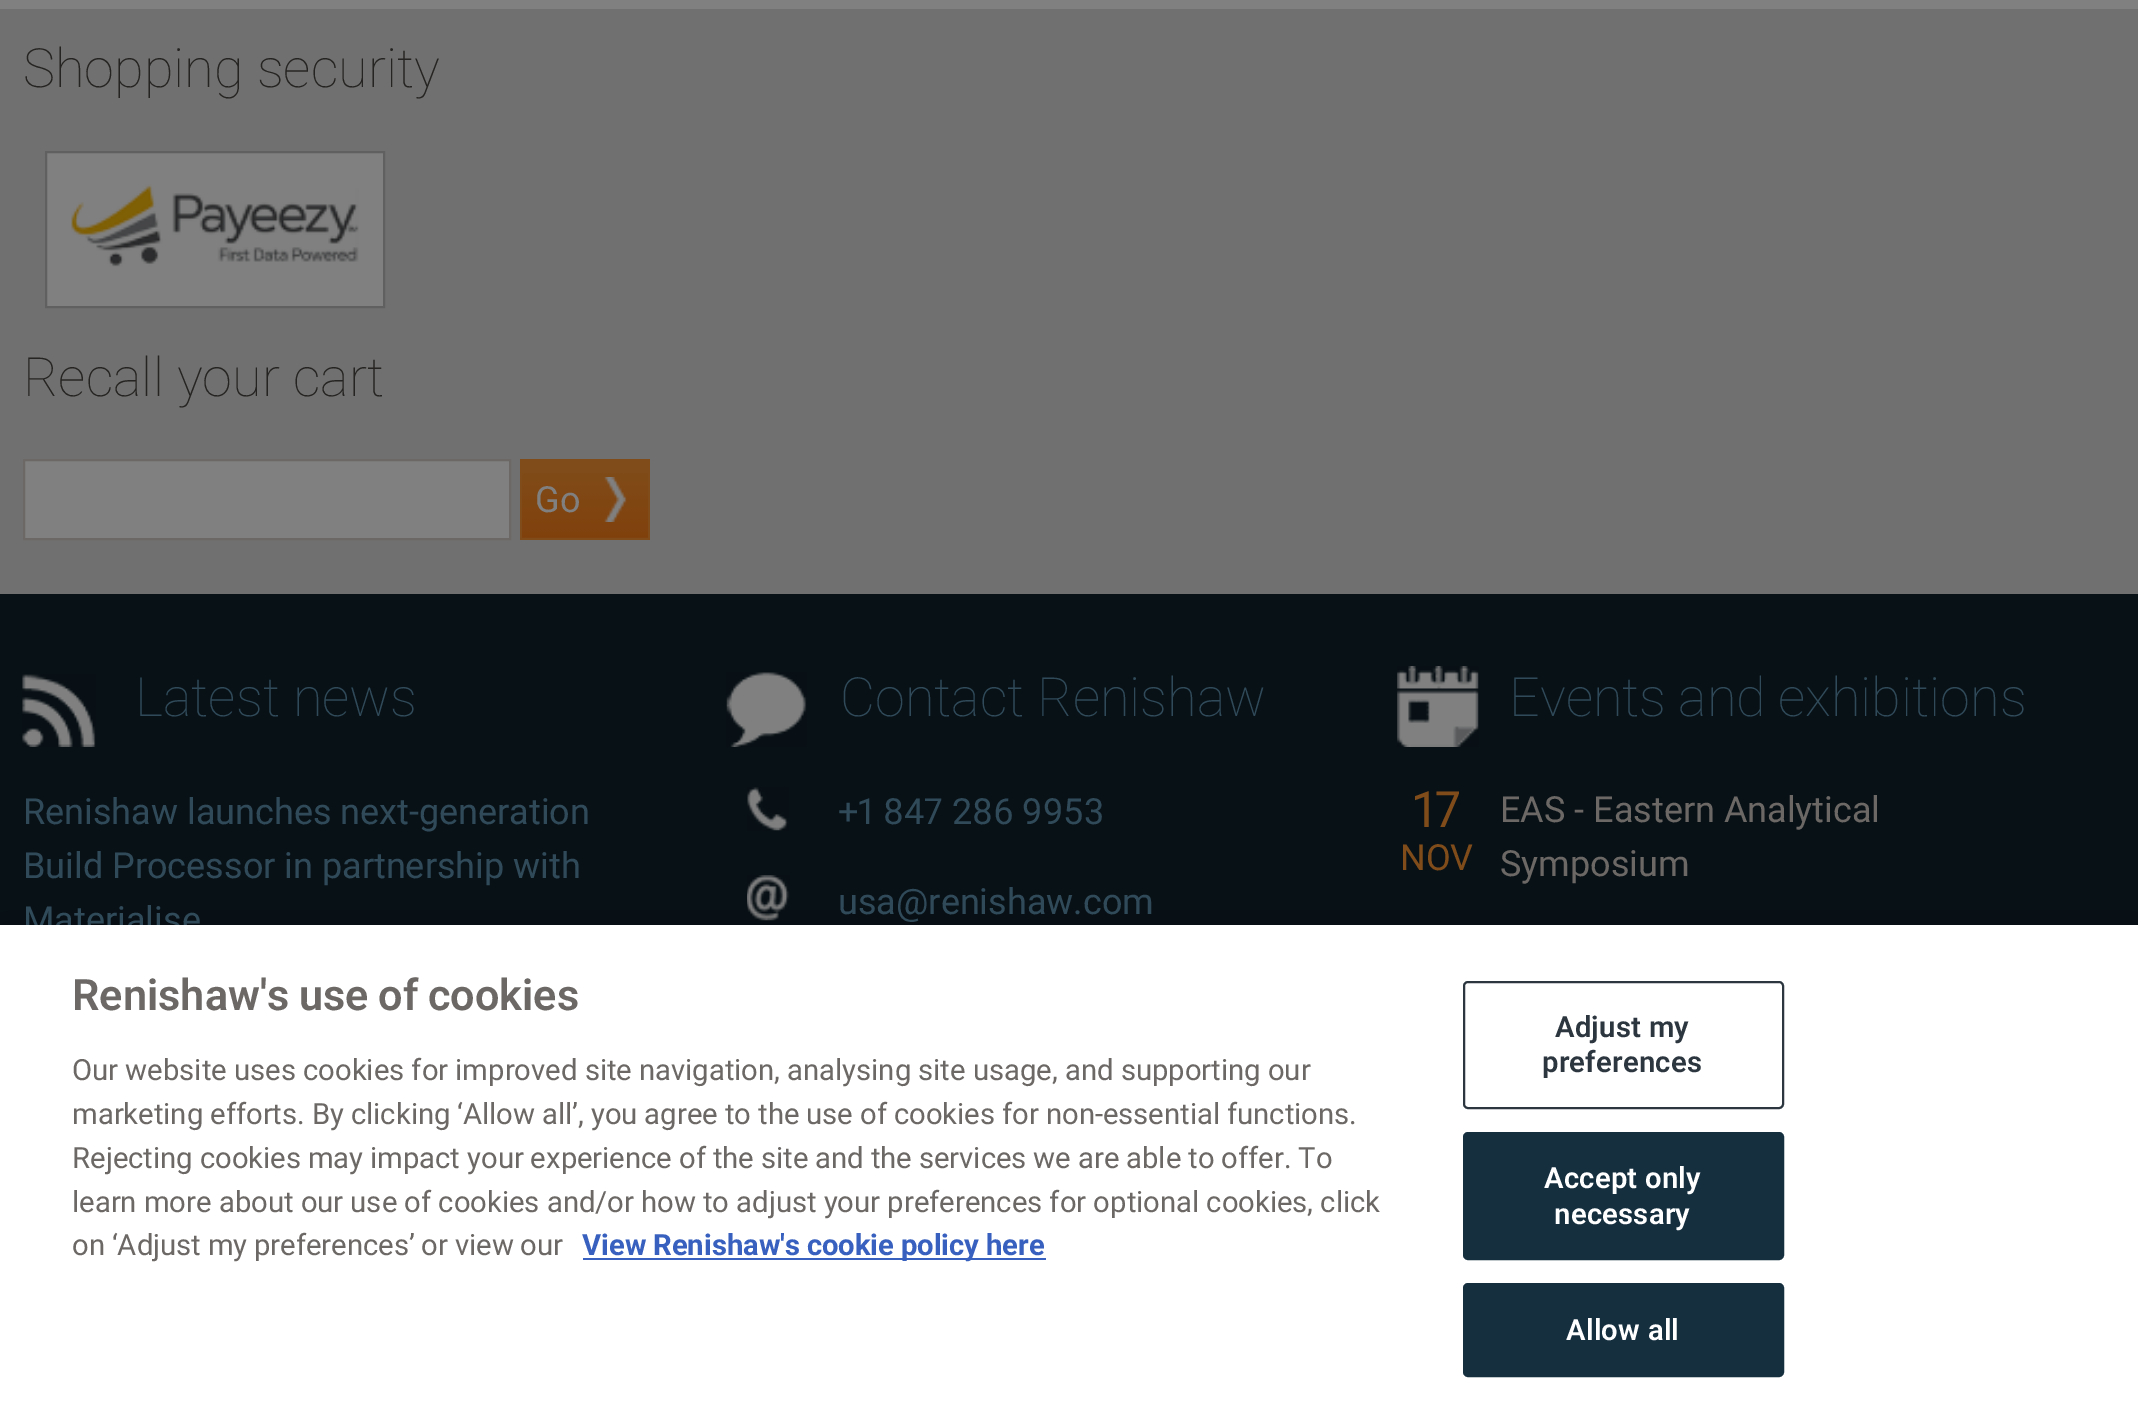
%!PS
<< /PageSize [2138 1421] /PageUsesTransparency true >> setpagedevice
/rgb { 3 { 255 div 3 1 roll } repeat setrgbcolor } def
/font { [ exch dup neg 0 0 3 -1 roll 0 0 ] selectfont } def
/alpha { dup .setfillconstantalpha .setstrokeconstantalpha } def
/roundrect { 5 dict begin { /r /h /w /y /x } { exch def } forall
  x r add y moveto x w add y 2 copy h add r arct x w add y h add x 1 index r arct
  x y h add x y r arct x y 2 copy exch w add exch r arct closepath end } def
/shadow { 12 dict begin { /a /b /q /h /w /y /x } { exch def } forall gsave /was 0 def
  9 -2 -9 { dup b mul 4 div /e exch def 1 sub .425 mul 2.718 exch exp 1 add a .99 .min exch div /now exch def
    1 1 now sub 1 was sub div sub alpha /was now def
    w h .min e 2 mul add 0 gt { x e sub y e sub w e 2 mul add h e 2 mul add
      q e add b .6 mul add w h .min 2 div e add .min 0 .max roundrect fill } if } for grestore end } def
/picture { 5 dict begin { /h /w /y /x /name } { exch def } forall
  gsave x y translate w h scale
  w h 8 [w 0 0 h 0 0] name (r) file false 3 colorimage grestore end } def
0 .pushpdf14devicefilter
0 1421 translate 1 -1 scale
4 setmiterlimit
128 128 128 rgb
0 0 2138 1421 rectfill
112 112 112 rgb
0 9 2138 585 rectfill
128 128 128 rgb
46 152 moveto 384 152 lineto 384 307 lineto 46 307 lineto closepath gsave fill grestore
96 96 96 rgb
2 setlinewidth
stroke
(img/1.rgb) 71 184 288 83 picture
128 128 128 rgb
24 460 moveto 510 460 lineto 510 539 lineto 24 539 lineto closepath gsave fill grestore
107 104 102 rgb
stroke
128 77 26 rgb
520 459 130 81 rectfill
(img/2.rgb) 522 473 126 65 picture
8 17 22 rgb
0 594 2138 331 rectfill
(img/3.rgb) 22 674 74 73 picture
(img/4.rgb) 726 672 81 75 picture
(img/5.rgb) 747 787 42 44 picture
(img/6.rgb) 747 875 43 46 picture
(img/7.rgb) 1397 666 82 81 picture
0 0 0 rgb
0 925 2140 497 0 20 0.2 shadow
/Roboto-Thin 54 font
38 36 34 rgb
23 87 moveto (Shopping security) show
23 396 moveto (Recall your cart) show
/Roboto-Regular 36 font
128 128 128 rgb
535 512 moveto (Go) show
/Roboto-Thin 54 font
48 74 90 rgb
135 716 moveto (Latest news) show
/Roboto-Regular 36 font
[
  [(Renishaw launches next-generation) 23 824]
  [(Build Processor in partnership with) 23 878]
  [(Materialise) 23 932]
] { aload pop moveto show } forall
/Roboto-Thin 54 font
840 716 moveto (Contact Renishaw) show
/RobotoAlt-Regular 36 font
838 824 moveto (+1 847 286 9953) show
/Roboto-Regular 36 font
838 914 moveto (usa@renishaw.com) show
/Roboto-Thin 54 font
1509 716 moveto -1 0 32 (Events and exhibitions) widthshow
/RobotoAlt-Regular 50 font
128 77 26 rgb
1413 827 moveto (17) show
/Roboto-Regular 36 font
1400 870 moveto (NOV) show
107 104 102 rgb
1500 822 moveto (EAS - Eastern Analytical) show
1500 876 moveto (Symposium) show
255 255 255 rgb
0 925 2138 496 rectfill
/Roboto-SemiBold 43.25 font
107 104 102 rgb
72 1010 moveto -1 0 32 (Renishaw's use of cookies) widthshow
/Roboto-Regular 29.25 font
72 1080 moveto (Our website uses cookies for improved site navigation, analysing site usage, and supporting our) show
72 1124 moveto -0.25 0 32 (marketing efforts. By clicking ‘Allow all’, you agree to the use of cookies for non-essential functions.) widthshow
72 1168 moveto -0.3 0 32 (Rejecting cookies may impact your experience of the site and the services we are able to offer. To) widthshow
72 1212 moveto -0.1 0 32 (learn more about our use of cookies and/or how to adjust your preferences for optional cookies, click) widthshow
72 1255 moveto -0.5 0 32 (on ‘Adjust my preferences’ or view our) widthshow
56 96 190 rgb
583 1258 463 2 rectfill
/Roboto-Bold 29.25 font
582 1255 moveto -0.5 0 32 (View Renishaw's cookie policy here) widthshow
44 54 63 rgb
1464 982 319 126 4 roundrect stroke
/Roboto-SemiBold 29.25 font
1555 1037 moveto 0.25 0 (Adjust my) ashow
1542 1072 moveto 0.25 0 (preferences) ashow
21 47 63 rgb
1464 1133 319 126 4 roundrect gsave fill grestore
stroke
255 255 255 rgb
1544 1188 moveto 0.25 0 (Accept only) ashow
1554 1224 moveto 0.25 0 (necessary) ashow
21 47 63 rgb
1464 1284 319 92 4 roundrect gsave fill grestore
stroke
255 255 255 rgb
1566 1340 moveto 0.25 0 (Allow all) ashow
.poppdf14devicefilter showpage
